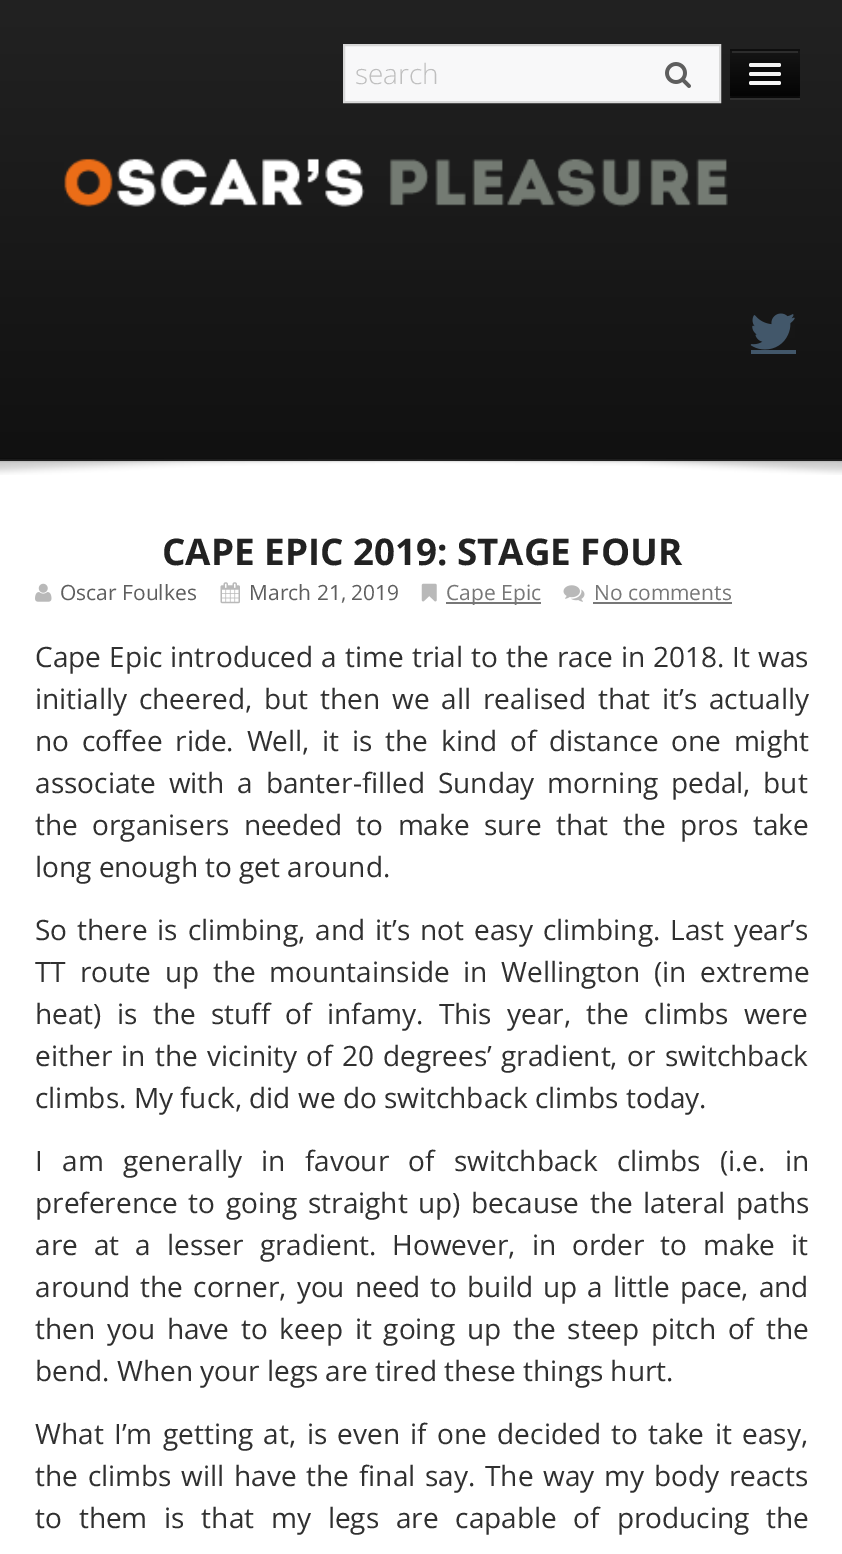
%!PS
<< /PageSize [842 1554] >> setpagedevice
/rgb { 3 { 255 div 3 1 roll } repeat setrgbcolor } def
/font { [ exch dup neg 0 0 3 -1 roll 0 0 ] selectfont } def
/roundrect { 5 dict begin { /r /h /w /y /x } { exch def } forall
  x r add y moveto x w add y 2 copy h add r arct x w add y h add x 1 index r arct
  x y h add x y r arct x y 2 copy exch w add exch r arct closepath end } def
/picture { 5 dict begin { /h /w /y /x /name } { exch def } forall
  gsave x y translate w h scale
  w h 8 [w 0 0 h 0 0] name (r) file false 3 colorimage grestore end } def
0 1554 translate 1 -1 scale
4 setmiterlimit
255 255 255 rgb
0 0 842 1554 rectfill
gsave 0 0 moveto 842 0 lineto 842 459 lineto 0 459 lineto closepath clip newpath
<< /ShadingType 2 /ColorSpace /DeviceRGB /Coords [422 0 422 459] /Extend [true true] /Function << /FunctionType 2 /Domain [0 1] /C0 [0.133 0.133 0.133] /C1 [0.067 0.067 0.067] /N 1 >> >> shfill grestore
37 37 37 rgb
0 459 842 2 rectfill
248 248 249 rgb
344 45 moveto 720 45 lineto 720 102 lineto 344 102 lineto closepath gsave fill grestore
216 216 216 rgb
2 setlinewidth
stroke
(img/1.rgb) 665 62 26 26 picture
47 47 47 rgb
730 98 moveto 730 100 lineto 800 100 lineto 800 51 lineto 800 98 lineto closepath fill
14 14 14 rgb
730 49 70 49 rectfill
gsave 730 51 moveto 800 51 lineto 800 96 lineto 730 96 lineto closepath clip newpath
<< /ShadingType 2 /ColorSpace /DeviceRGB /Coords [765 51 765 96] /Extend [true true] /Function << /FunctionType 2 /Domain [0 1] /C0 [0.082 0.082 0.082] /C1 [0.016 0.016 0.016] /N 1 >> >> shfill grestore
44 44 44 rgb
732 51 66 2 rectfill
10 10 10 rgb
800 98 moveto 730 98 lineto 732 96 lineto 798 96 lineto closepath fill
11 11 11 rgb
749.5 66 moveto 749 67.5 lineto 749.5 70 754.5 69 755.5 69 curveto 774.5 69 lineto 776 69 781 70 781 67 curveto 780.5 65.5 lineto 780 66 779.5 66.5 779 66.5 curveto 750.5 66.5 lineto closepath fill
245 245 245 rgb
749 63 32 4 2 roundrect fill
9 9 9 rgb
749.5 74.5 moveto 749 75 749 76 749 76.5 curveto 749.5 79 754.5 78 755.5 78 curveto 779 78 lineto 781 78 781.5 75.5 780 74.5 curveto 779 75 lineto 750.5 75 lineto closepath fill
245 245 245 rgb
749 72 32 4 2 roundrect fill
749 81 32 4 2 roundrect fill
(img/2.rgb) 64 158 664 49 picture
66 87 106 rgb
751 350 45 4 rectfill
(img/3.rgb) 750 313 45 37 picture
(img/4.rgb) 0 458 842 2 picture
(img/5.rgb) 0 460 842 15 picture
(img/6.rgb) 35 583 17 19 picture
(img/7.rgb) 220 582 20 22 picture
(img/8.rgb) 421 583 16 19 picture
119 119 119 rgb
446 602 95 2 rectfill
(img/9.rgb) 563 585 22 17 picture
593 602 139 2 rectfill
/OpenSans-Light 28 font
191 191 191 rgb
355 84 moveto (search) show
/OpenSans-Bold 36.75 font
34 34 34 rgb
162 565 moveto (CAPE EPIC 2019: STAGE FOUR) show
/OpenSans-Regular 21 font
94 94 94 rgb
60 600 moveto (Oscar Foulkes) show
249 600 moveto (March 21, 2019) show
119 119 119 rgb
446 600 moveto (Cape Epic) show
594 600 moveto (No comments) show
/OpenSans-Regular 28 font
48 48 48 rgb
35 667 moveto 0.75 0 32 (Cape Epic introduced a time trial to the race in 2018. It was) widthshow
35 709 moveto 4.5 0 32 (initially cheered, but then we all realised that it’s actually) widthshow
35 751 moveto 5.5 0 32 (no coffee ride. Well, it is the kind of distance one might) widthshow
35 793 moveto 5.5 0 32 (associate with a banter-filled Sunday morning pedal, but) widthshow
35 835 moveto 7 0 32 (the organisers needed to make sure that the pros take) widthshow
35 877 moveto (long enough to get around.) show
35 940 moveto 2.75 0 32 (So there is climbing, and it’s not easy climbing. Last year’s) widthshow
35 982 moveto 6.5 0 32 (TT route up the mountainside in Wellington \(in extreme) widthshow
35 1024 moveto 8 0 32 (heat\) is the stuff of infamy. This year, the climbs were) widthshow
35 1066 moveto 2 0 32 (either in the vicinity of 20 degrees’ gradient, or switchback) widthshow
35 1108 moveto (climbs. My fuck, did we do switchback climbs today.) show
35 1171 moveto 12 0 32 (I am generally in favour of switchback climbs \(i.e. in) widthshow
35 1213 moveto 3.25 0 32 (preference to going straight up\) because the lateral paths) widthshow
35 1255 moveto 8.75 0 32 (are at a lesser gradient. However, in order to make it) widthshow
35 1297 moveto 2.75 0 32 (around the corner, you need to build up a little pace, and) widthshow
35 1339 moveto 4.5 0 32 (then you have to keep it going up the steep pitch of the) widthshow
35 1381 moveto (bend. When your legs are tired these things hurt.) show
35 1444 moveto 3.1 0 32 (What I’m getting at, is even if one decided to take it easy,) widthshow
35 1486 moveto 2.5 0 32 (the climbs will have the final say. The way my body reacts) widthshow
35 1528 moveto 9.5 0 32 (to them is that my legs are capable of producing the) widthshow
showpage
